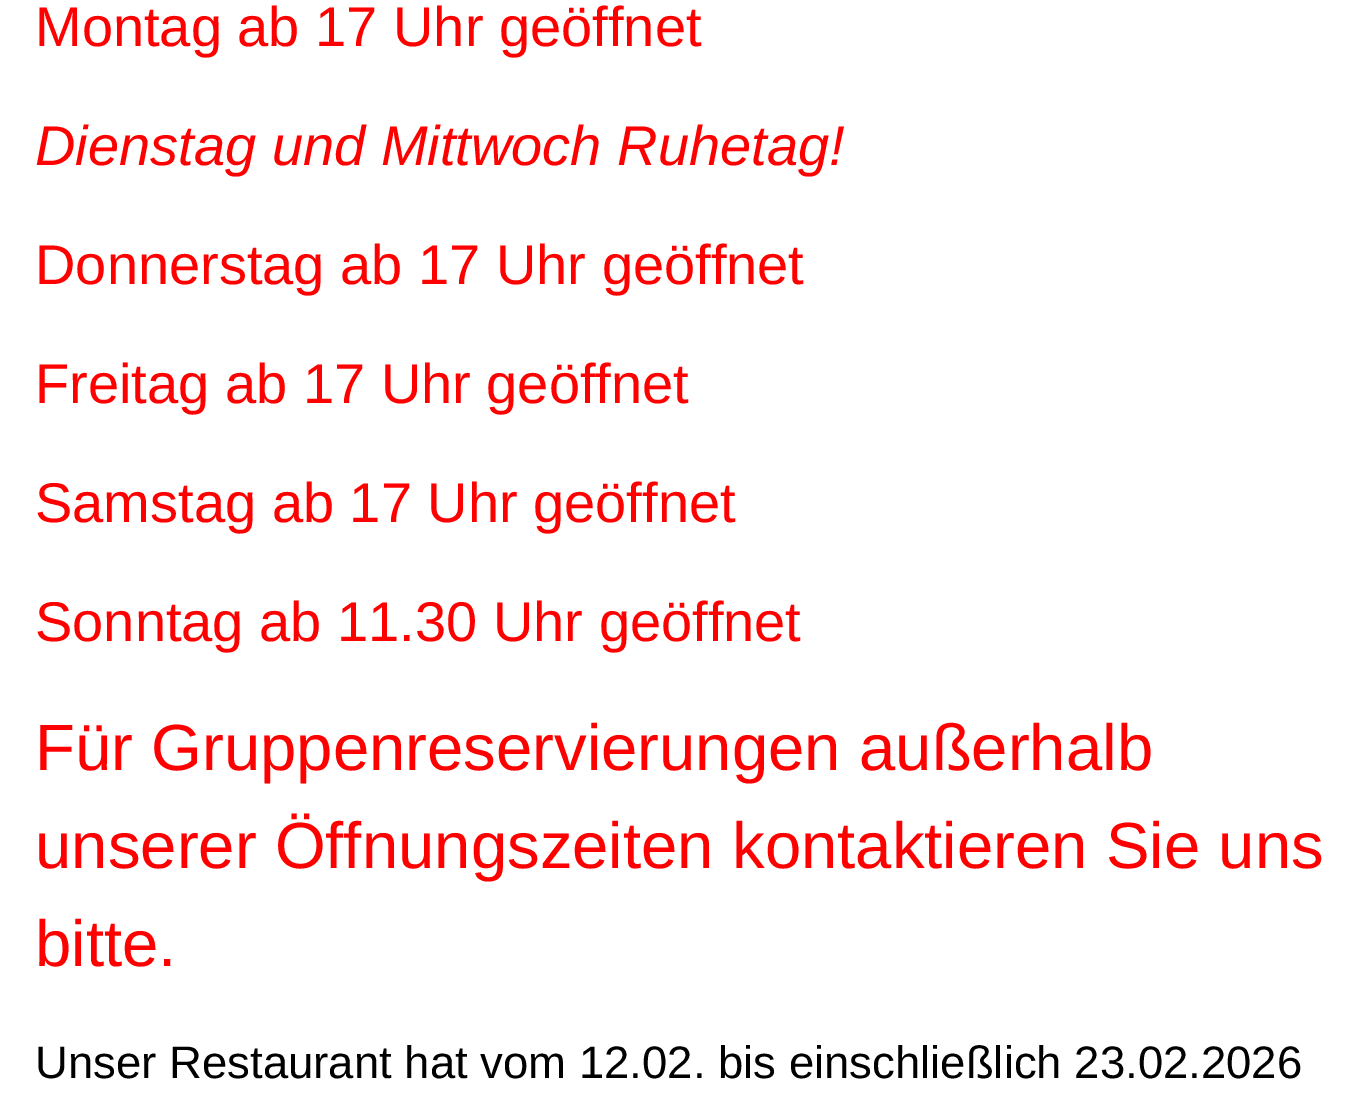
%!PS
<< /PageSize [1362 1100] >> setpagedevice
/rgb { 3 { 255 div 3 1 roll } repeat setrgbcolor } def
/font { [ exch dup neg 0 0 3 -1 roll 0 0 ] selectfont } def
0 1100 translate 1 -1 scale
4 setmiterlimit
255 255 255 rgb
0 0 1362 1100 rectfill
/LiberationSans-Regular 56 font
255 0 0 rgb
35 46 moveto (Montag ab 17 Uhr geöffnet) show
/LiberationSans-Italic 56 font
35 165 moveto (Dienstag und Mittwoch Ruhetag!) show
/LiberationSans-Regular 56 font
[
  [(Donnerstag ab 17 Uhr geöffnet) 35 284]
  [(Freitag ab 17 Uhr geöffnet) 35 403]
  [(Samstag ab 17 Uhr geöffnet) 35 522]
  [(Sonntag ab 11.30 Uhr geöffnet) 35 641]
] { aload pop moveto show } forall
/LiberationSans-Regular 65.3 font
[
  [(Für Gruppenreservierungen außerhalb) 35 770]
  [(unserer Öffnungszeiten kontaktieren Sie uns) 35 868]
  [(bitte.) 35 966]
] { aload pop moveto show } forall
/LiberationSans-Regular 45.5 font
0 0 0 rgb
35 1078 moveto (Unser Restaurant hat vom 12.02. bis einschließlich 23.02.2026) show
showpage
